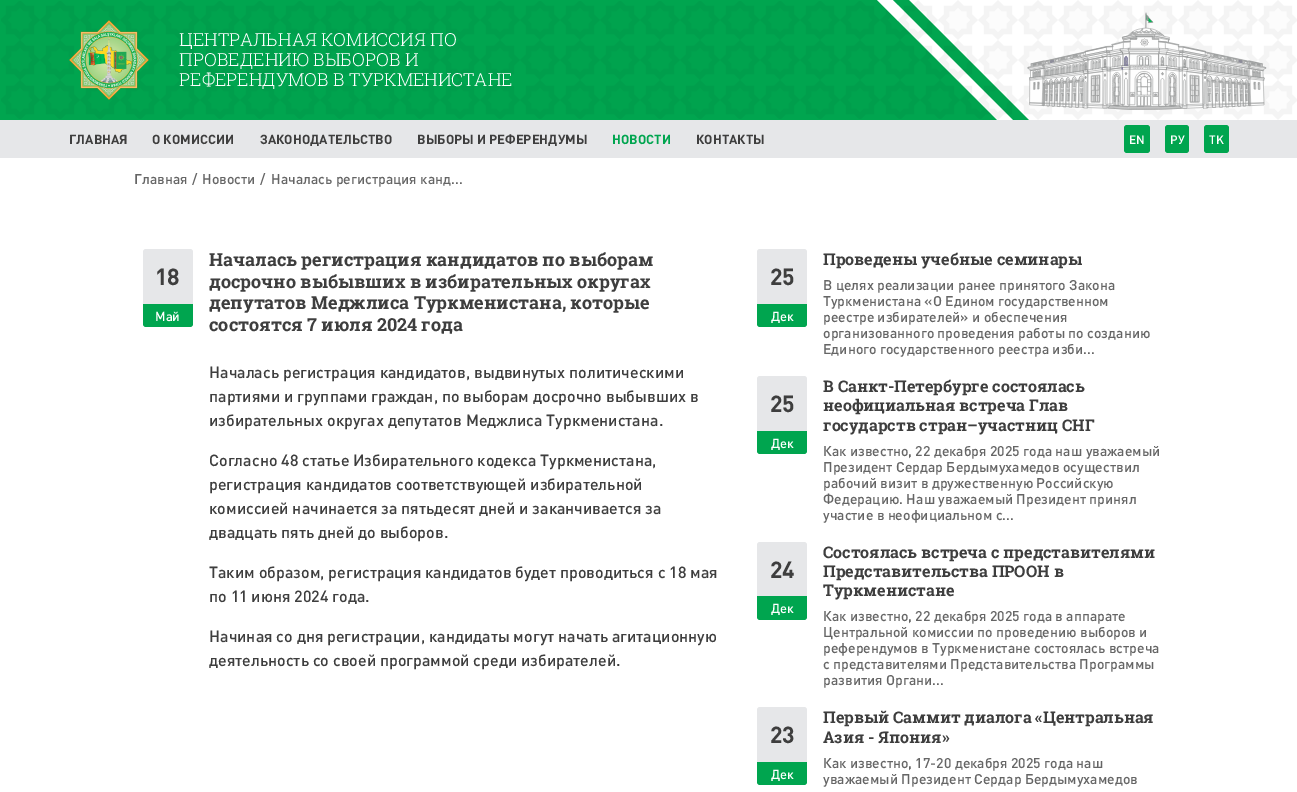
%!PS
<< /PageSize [1297 792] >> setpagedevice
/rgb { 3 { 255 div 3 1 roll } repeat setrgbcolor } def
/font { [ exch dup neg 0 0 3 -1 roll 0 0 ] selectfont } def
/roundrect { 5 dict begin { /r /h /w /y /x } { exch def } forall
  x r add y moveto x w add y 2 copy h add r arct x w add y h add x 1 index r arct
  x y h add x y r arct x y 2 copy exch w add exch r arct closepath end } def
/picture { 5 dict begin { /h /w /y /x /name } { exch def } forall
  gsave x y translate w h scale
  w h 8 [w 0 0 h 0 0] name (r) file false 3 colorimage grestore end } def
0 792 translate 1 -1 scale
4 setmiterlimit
255 255 255 rgb
0 0 1297 792 rectfill
0 165 79 rgb
0 0 997 120 rectfill
(img/1.rgb) 1 1 990 118 picture
(img/2.rgb) 69 20 80 80 picture
255 255 255 rgb
877 0 moveto 1297 0 lineto 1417 120 lineto 997 120 lineto closepath fill
0 165 79 rgb
893 0 moveto 909 0 lineto 1029 120 lineto 1013 120 lineto closepath fill
(img/3.rgb) 898 0 399 120 picture
(img/4.rgb) 1027 12 240 98 picture
230 231 233 rgb
0 120 1297 38 rectfill
0 165 79 rgb
1124 125 26 28 3 roundrect fill
1165 125 24 28 3 roundrect fill
1204 125 25 28 3 roundrect fill
230 231 233 rgb
146 249 moveto 190 249 lineto 191.5 249 193 250.5 193 252 curveto 193 304 lineto 143 304 lineto 143 252 lineto 143 250.5 144.5 249 146 249 curveto closepath fill
0 165 79 rgb
143 304 moveto 193 304 lineto 193 324 lineto 193 325.5 191.5 327 190 327 curveto 146 327 lineto 144.5 327 143 325.5 143 324 curveto closepath fill
230 231 233 rgb
760 249 moveto 804 249 lineto 805.5 249 807 250.5 807 252 curveto 807 304 lineto 757 304 lineto 757 252 lineto 757 250.5 758.5 249 760 249 curveto closepath fill
0 165 79 rgb
757 304 moveto 807 304 lineto 807 324 lineto 807 325.5 805.5 327 804 327 curveto 760 327 lineto 758.5 327 757 325.5 757 324 curveto closepath fill
230 231 233 rgb
760 376 moveto 804 376 lineto 805.5 376 807 377.5 807 379 curveto 807 431 lineto 757 431 lineto 757 379 lineto 757 377.5 758.5 376 760 376 curveto closepath fill
0 165 79 rgb
757 431 moveto 807 431 lineto 807 451 lineto 807 452.5 805.5 454 804 454 curveto 760 454 lineto 758.5 454 757 452.5 757 451 curveto closepath fill
230 231 233 rgb
760 542 moveto 804 542 lineto 805.5 542 807 543.5 807 545 curveto 807 596 lineto 757 596 lineto 757 545 lineto 757 543.5 758.5 542 760 542 curveto closepath fill
0 165 79 rgb
757 596 moveto 807 596 lineto 807 617 lineto 807 618.5 805.5 620 804 620 curveto 760 620 lineto 758.5 620 757 618.5 757 617 curveto closepath fill
230 231 233 rgb
760 707 moveto 804 707 lineto 805.5 707 807 708.5 807 710 curveto 807 762 lineto 757 762 lineto 757 710 lineto 757 708.5 758.5 707 760 707 curveto closepath fill
0 165 79 rgb
757 762 moveto 807 762 lineto 807 782 lineto 807 783.5 805.5 785 804 785 curveto 760 785 lineto 758.5 785 757 783.5 757 782 curveto closepath fill
/RobotoSlab-Light 18 font
255 255 255 rgb
[
  [(ЦЕНТРАЛЬНАЯ КОМИССИЯ ПО) 179 46]
  [(ПРОВЕДЕНИЮ ВЫБОРОВ И) 179 66]
  [(РЕФЕРЕНДУМОВ В ТУРКМЕНИСТАНЕ) 179 86]
] { aload pop moveto show } forall
/DIN-Bold 13 font
62 62 62 rgb
[
  [(ГЛАВНАЯ) 69 144]
  [(О КОМИССИИ) 152 144]
  [(ЗАКОНОДАТЕЛЬСТВО) 260 144]
  [(ВЫБОРЫ И РЕФЕРЕНДУМЫ) 417 144]
] { aload pop moveto show } forall
0 165 79 rgb
612 144 moveto (НОВОСТИ) show
62 62 62 rgb
696 144 moveto (КОНТАКТЫ) show
/DIN-Medium 12 font
255 255 255 rgb
[
  [(EN) 1129 144]
  [(РУ) 1170 144]
  [(TK) 1209 144]
] { aload pop moveto show } forall
/DIN-Medium 14 font
101 101 101 rgb
[
  [(Главная) 134 184]
  [(/) 192 184]
  [(Новости) 202 184]
  [(/) 260 184]
  [(Началась регистрация канд...) 271 184]
] { aload pop moveto show } forall
/DIN-Bold 23 font
62 62 62 rgb
155 285 moveto (18) show
/DIN-Medium 13 font
255 255 255 rgb
155 321 moveto (Май) show
/RobotoSlab-Bold 18 font
62 62 62 rgb
[
  [(Началась регистрация кандидатов по выборам) 209 266]
  [(досрочно выбывших в избирательных округах) 209 288]
  [(депутатов Меджлиса Туркменистана, которые) 209 309]
  [(состоятся 7 июля 2024 года) 209 331]
] { aload pop moveto show } forall
/DIN-Medium 16 font
[
  [(Началась регистрация кандидатов, выдвинутых политическими) 209 378]
  [(партиями и группами граждан, по выборам досрочно выбывших в) 209 402]
  [(избирательных округах депутатов Меджлиса Туркменистана.) 209 426]
  [(Согласно 48 статье Избирательного кодекса Туркменистана,) 209 466]
  [(регистрация кандидатов соответствующей избирательной) 209 490]
  [(комиссией начинается за пятьдесят дней и заканчивается за) 209 514]
  [(двадцать пять дней до выборов.) 209 538]
  [(Таким образом, регистрация кандидатов будет проводиться с 18 мая) 209 578]
  [(по 11 июня 2024 года.) 209 602]
  [(Начиная со дня регистрации, кандидаты могут начать агитационную) 209 642]
  [(деятельность со своей программой среди избирателей.) 209 666]
] { aload pop moveto show } forall
/DIN-Bold 23 font
770 285 moveto (25) show
/DIN-Medium 13 font
255 255 255 rgb
771 321 moveto (Дек) show
/RobotoSlab-Bold 16 font
62 62 62 rgb
823 265 moveto (Проведены учебные семинары) show
/DIN-Medium 14 font
101 101 101 rgb
[
  [(В целях реализации ранее принятого Закона) 823 290]
  [(Туркменистана «О Едином государственном) 823 306]
  [(реестре избирателей» и обеспечения) 823 322]
  [(организованного проведения работы по созданию) 823 338]
  [(Единого государственного реестра изби...) 823 354]
] { aload pop moveto show } forall
/DIN-Bold 23 font
62 62 62 rgb
770 412 moveto (25) show
/DIN-Medium 13 font
255 255 255 rgb
771 448 moveto (Дек) show
/RobotoSlab-Bold 16 font
62 62 62 rgb
[
  [(В Санкт-Петербурге состоялась) 823 392]
  [(неофициальная встреча Глав) 823 411]
  [(государств стран–участниц СНГ) 823 431]
] { aload pop moveto show } forall
/DIN-Medium 14 font
101 101 101 rgb
[
  [(Как известно, 22 декабря 2025 года наш уважаемый) 823 456]
  [(Президент Сердар Бердымухамедов осуществил) 823 472]
  [(рабочий визит в дружественную Российскую) 823 488]
  [(Федерацию. Наш уважаемый Президент принял) 823 504]
  [(участие в неофициальном с...) 823 520]
] { aload pop moveto show } forall
/DIN-Bold 23 font
62 62 62 rgb
770 578 moveto (24) show
/DIN-Medium 13 font
255 255 255 rgb
771 613 moveto (Дек) show
/RobotoSlab-Bold 16 font
62 62 62 rgb
[
  [(Состоялась встреча с представителями) 823 558]
  [(Представительства ПРООН в) 823 577]
  [(Туркменистане) 823 596]
] { aload pop moveto show } forall
/DIN-Medium 14 font
101 101 101 rgb
[
  [(Как известно, 22 декабря 2025 года в аппарате) 823 621]
  [(Центральной комиссии по проведению выборов и) 823 637]
  [(референдумов в Туркменистане состоялась встреча) 823 653]
  [(с представителями Представительства Программы) 823 669]
  [(развития Органи...) 823 685]
] { aload pop moveto show } forall
/DIN-Bold 23 font
62 62 62 rgb
770 743 moveto (23) show
/DIN-Medium 13 font
255 255 255 rgb
771 779 moveto (Дек) show
/RobotoSlab-Bold 16 font
62 62 62 rgb
823 723 moveto (Первый Саммит диалога «Центральная) show
823 743 moveto (Азия - Япония») show
/DIN-Medium 14 font
101 101 101 rgb
823 768 moveto (Как известно, 17-20 декабря 2025 года наш) show
823 784 moveto (уважаемый Президент Сердар Бердымухамедов) show
showpage
